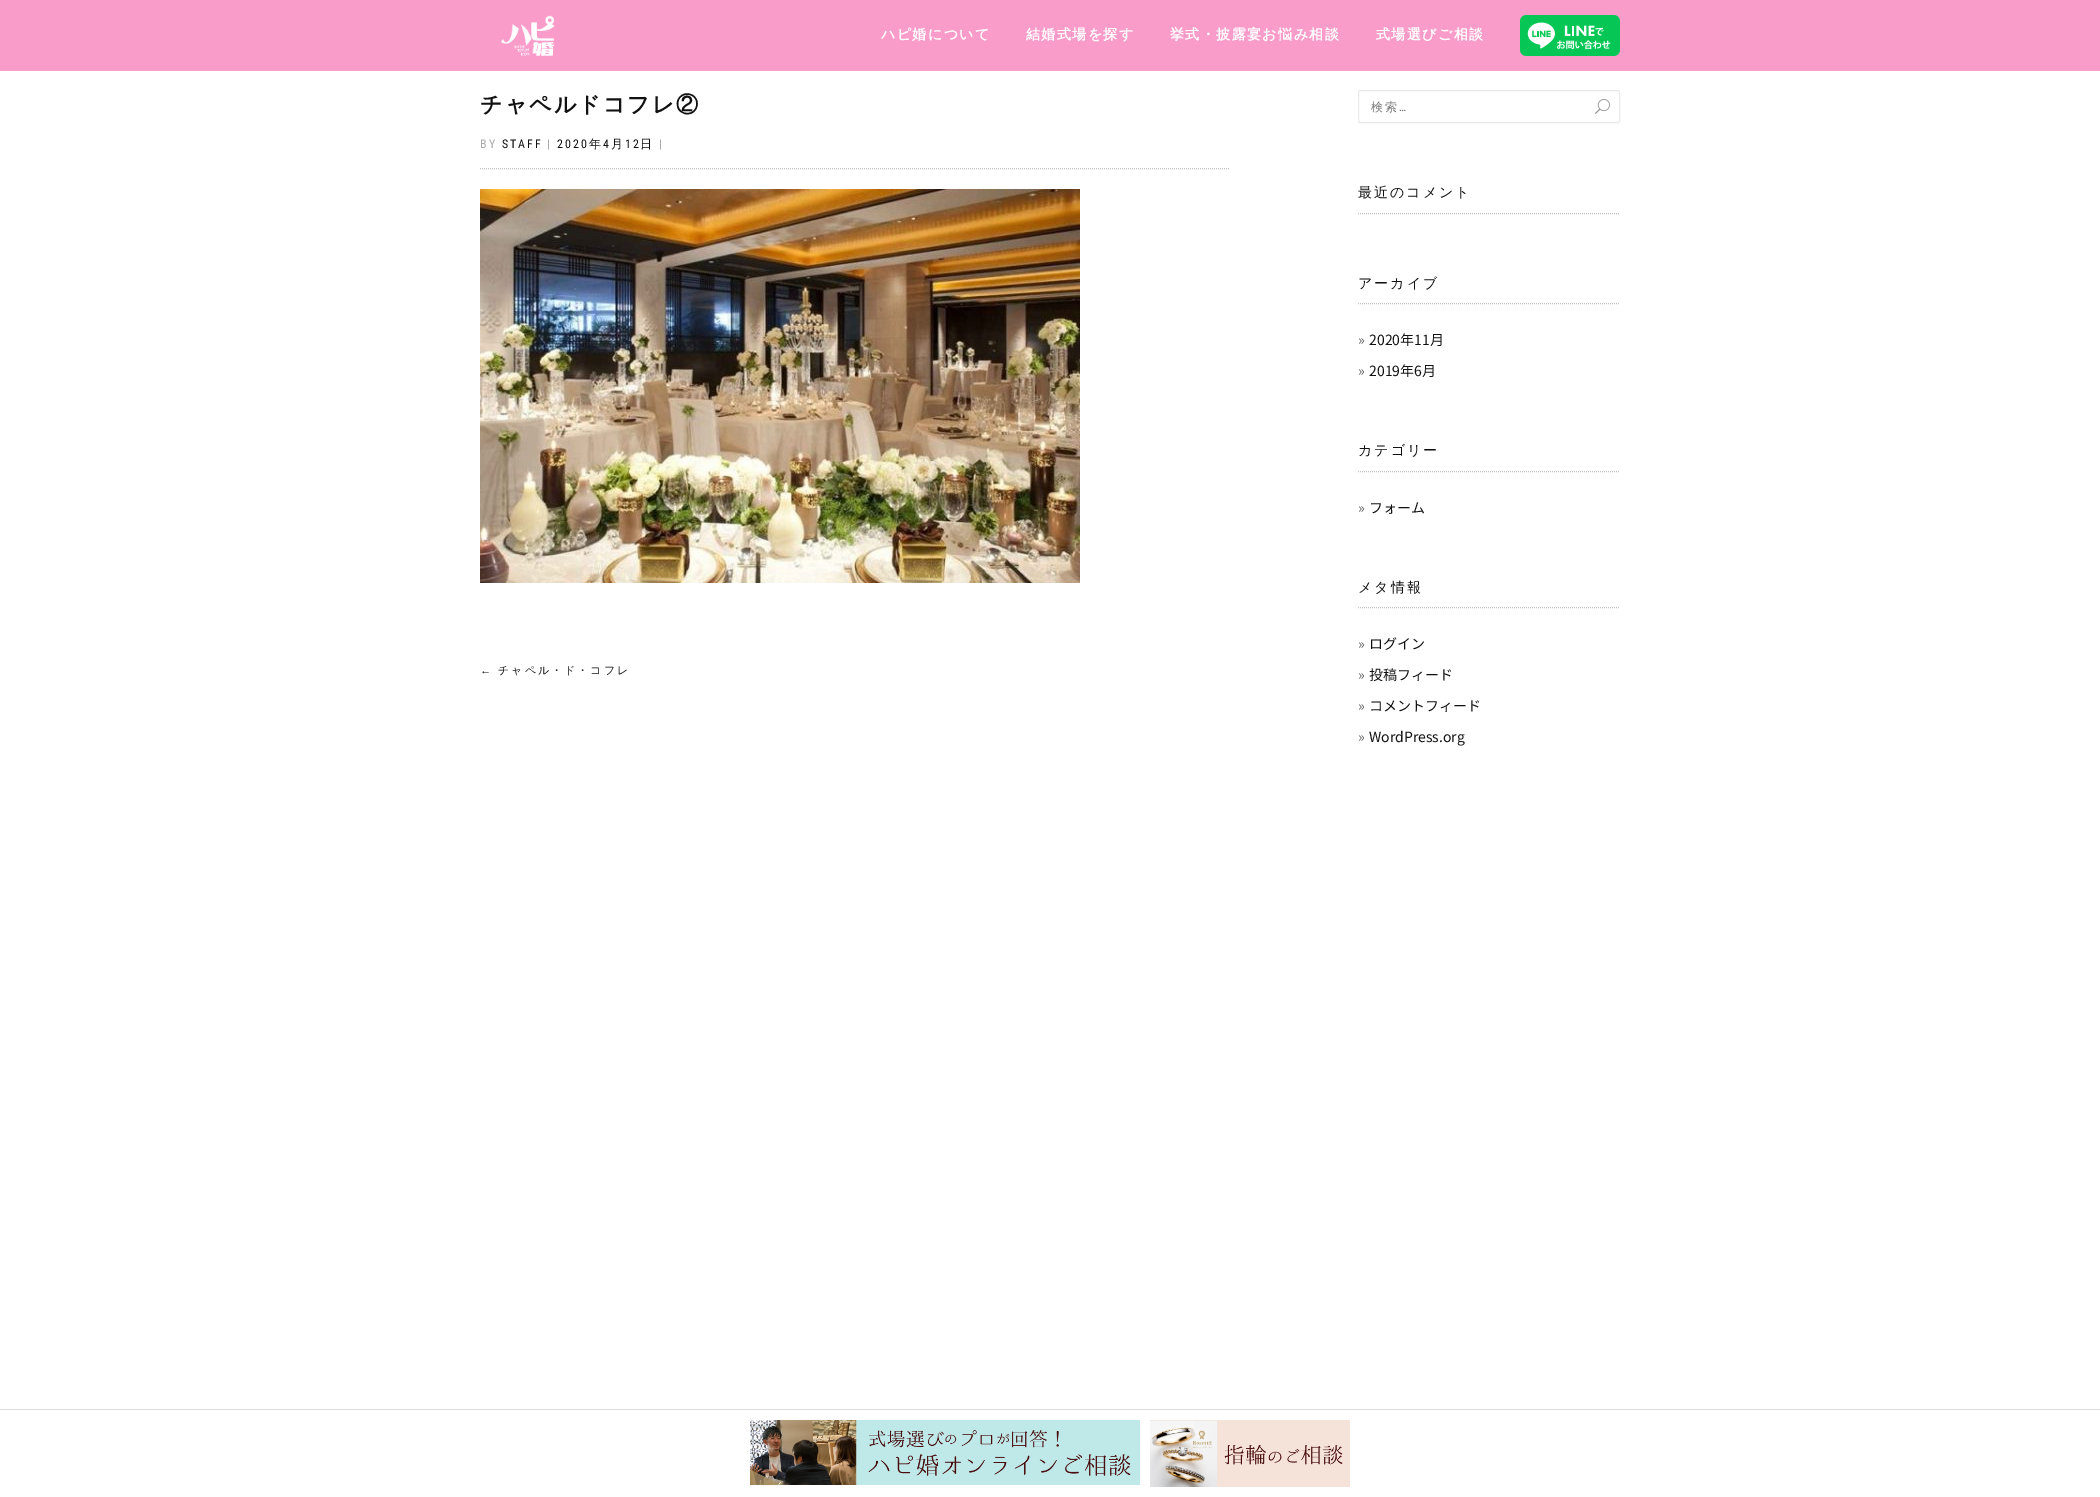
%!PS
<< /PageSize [2100 1497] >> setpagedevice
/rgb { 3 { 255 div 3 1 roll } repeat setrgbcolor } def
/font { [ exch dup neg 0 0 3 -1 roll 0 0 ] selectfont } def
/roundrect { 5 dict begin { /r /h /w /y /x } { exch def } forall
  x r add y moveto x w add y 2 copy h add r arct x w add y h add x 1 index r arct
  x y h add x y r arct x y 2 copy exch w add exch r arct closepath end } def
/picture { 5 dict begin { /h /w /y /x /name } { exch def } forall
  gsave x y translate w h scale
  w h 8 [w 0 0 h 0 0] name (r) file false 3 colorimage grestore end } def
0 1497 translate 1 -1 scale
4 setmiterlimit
255 255 255 rgb
0 0 2100 1497 rectfill
249 156 202 rgb
0 0 2100 71 rectfill
(img/1.rgb) 500 15 55 41 picture
(img/2.rgb) 1520 15 100 41 picture
194 194 194 rgb
[1 1] 0 setdash
480 168.5 moveto 1230 168.5 lineto stroke
(img/3.rgb) 480 189 600 394 picture
234 234 234 rgb
[] 0 setdash
1358.5 90.5 261 32 1.5 roundrect stroke
(img/4.rgb) 1595 99 15 15 picture
194 194 194 rgb
[1 1] 0 setdash
1358 213.5 moveto 1620 213.5 lineto stroke
1358 303.5 moveto 1620 303.5 lineto stroke
1358 471.5 moveto 1620 471.5 lineto stroke
1358 607.5 moveto 1620 607.5 lineto stroke
221 221 221 rgb
0 1409 2100 1 rectfill
(img/5.rgb) 750 1420 390 65 picture
(img/6.rgb) 1150 1420 200 67 picture
/WenQuanYiZenHei-Bold 14 font
255 255 255 rgb
881 39 moveto 1.4 0 (ハピ婚について) ashow
1026 39 moveto 1.4 0 (結婚式場を探す) ashow
1170 39 moveto 1.4 0 (挙式・披露宴お悩み相談) ashow
1376 39 moveto 1.4 0 (式場選びご相談) ashow
/WenQuanYiZenHei-Bold 22 font
17 17 17 rgb
480 112 moveto 2 0 (チャペルドコフレ②) ashow
/RobotoCondensed-Regular 12 font
170 170 170 rgb
480 148 moveto 2 0 (BY) ashow
17 17 17 rgb
502 148 moveto 2 0 (STAFF) ashow
170 170 170 rgb
547 148 moveto 2 0 (|) ashow
17 17 17 rgb
557 148 moveto 2 0 (2020) ashow
/WenQuanYiZenHei-Medium 12 font
589 148 moveto 2 0 (年) ashow
/RobotoCondensed-Regular 12 font
603 148 moveto 2 0 (4) ashow
/WenQuanYiZenHei-Medium 12 font
611 148 moveto 2 0 (月) ashow
/RobotoCondensed-Regular 12 font
625 148 moveto 2 0 (12) ashow
/WenQuanYiZenHei-Medium 12 font
640 148 moveto 2 0 (日) ashow
/RobotoCondensed-Regular 12 font
170 170 170 rgb
659 148 moveto 2 0 (|) ashow
/LiberationSans-Regular 11 font
17 17 17 rgb
480 674 moveto 2 0 (←) ashow
/WenQuanYiZenHei-Medium 11 font
498 674 moveto 2 0 (チャペル・ド・コフレ) ashow
/WenQuanYiZenHei-Medium 12 font
117 117 117 rgb
1371 111 moveto 2 0 (検索) ashow
/RobotoCondensed-Regular 12 font
1399 111 moveto 2 0 (…) ashow
/WenQuanYiZenHei-Medium 14 font
17 17 17 rgb
1358 197 moveto 2 0 (最近のコメント) ashow
1358 288 moveto 2 0 (アーカイブ) ashow
/NotoSansJP-Regular 14 font
102 102 102 rgb
1358 345 moveto (») show
17 17 17 rgb
1369 345 moveto (2020年11月) show
102 102 102 rgb
1358 376 moveto (») show
17 17 17 rgb
1369 376 moveto (2019年6月) show
/WenQuanYiZenHei-Medium 14 font
1358 455 moveto 2 0 (カテゴリー) ashow
/NotoSansJP-Regular 14 font
102 102 102 rgb
1358 513 moveto (») show
17 17 17 rgb
1369 513 moveto (フォーム) show
/WenQuanYiZenHei-Medium 14 font
1358 592 moveto 2 0 (メタ情報) ashow
/NotoSansJP-Regular 14 font
102 102 102 rgb
1358 649 moveto (») show
17 17 17 rgb
1369 649 moveto (ログイン) show
102 102 102 rgb
1358 680 moveto (») show
17 17 17 rgb
1369 680 moveto (投稿フィード) show
102 102 102 rgb
1358 711 moveto (») show
17 17 17 rgb
1369 711 moveto (コメントフィード) show
102 102 102 rgb
1358 742 moveto (») show
17 17 17 rgb
1369 742 moveto (WordPress.org) show
showpage
